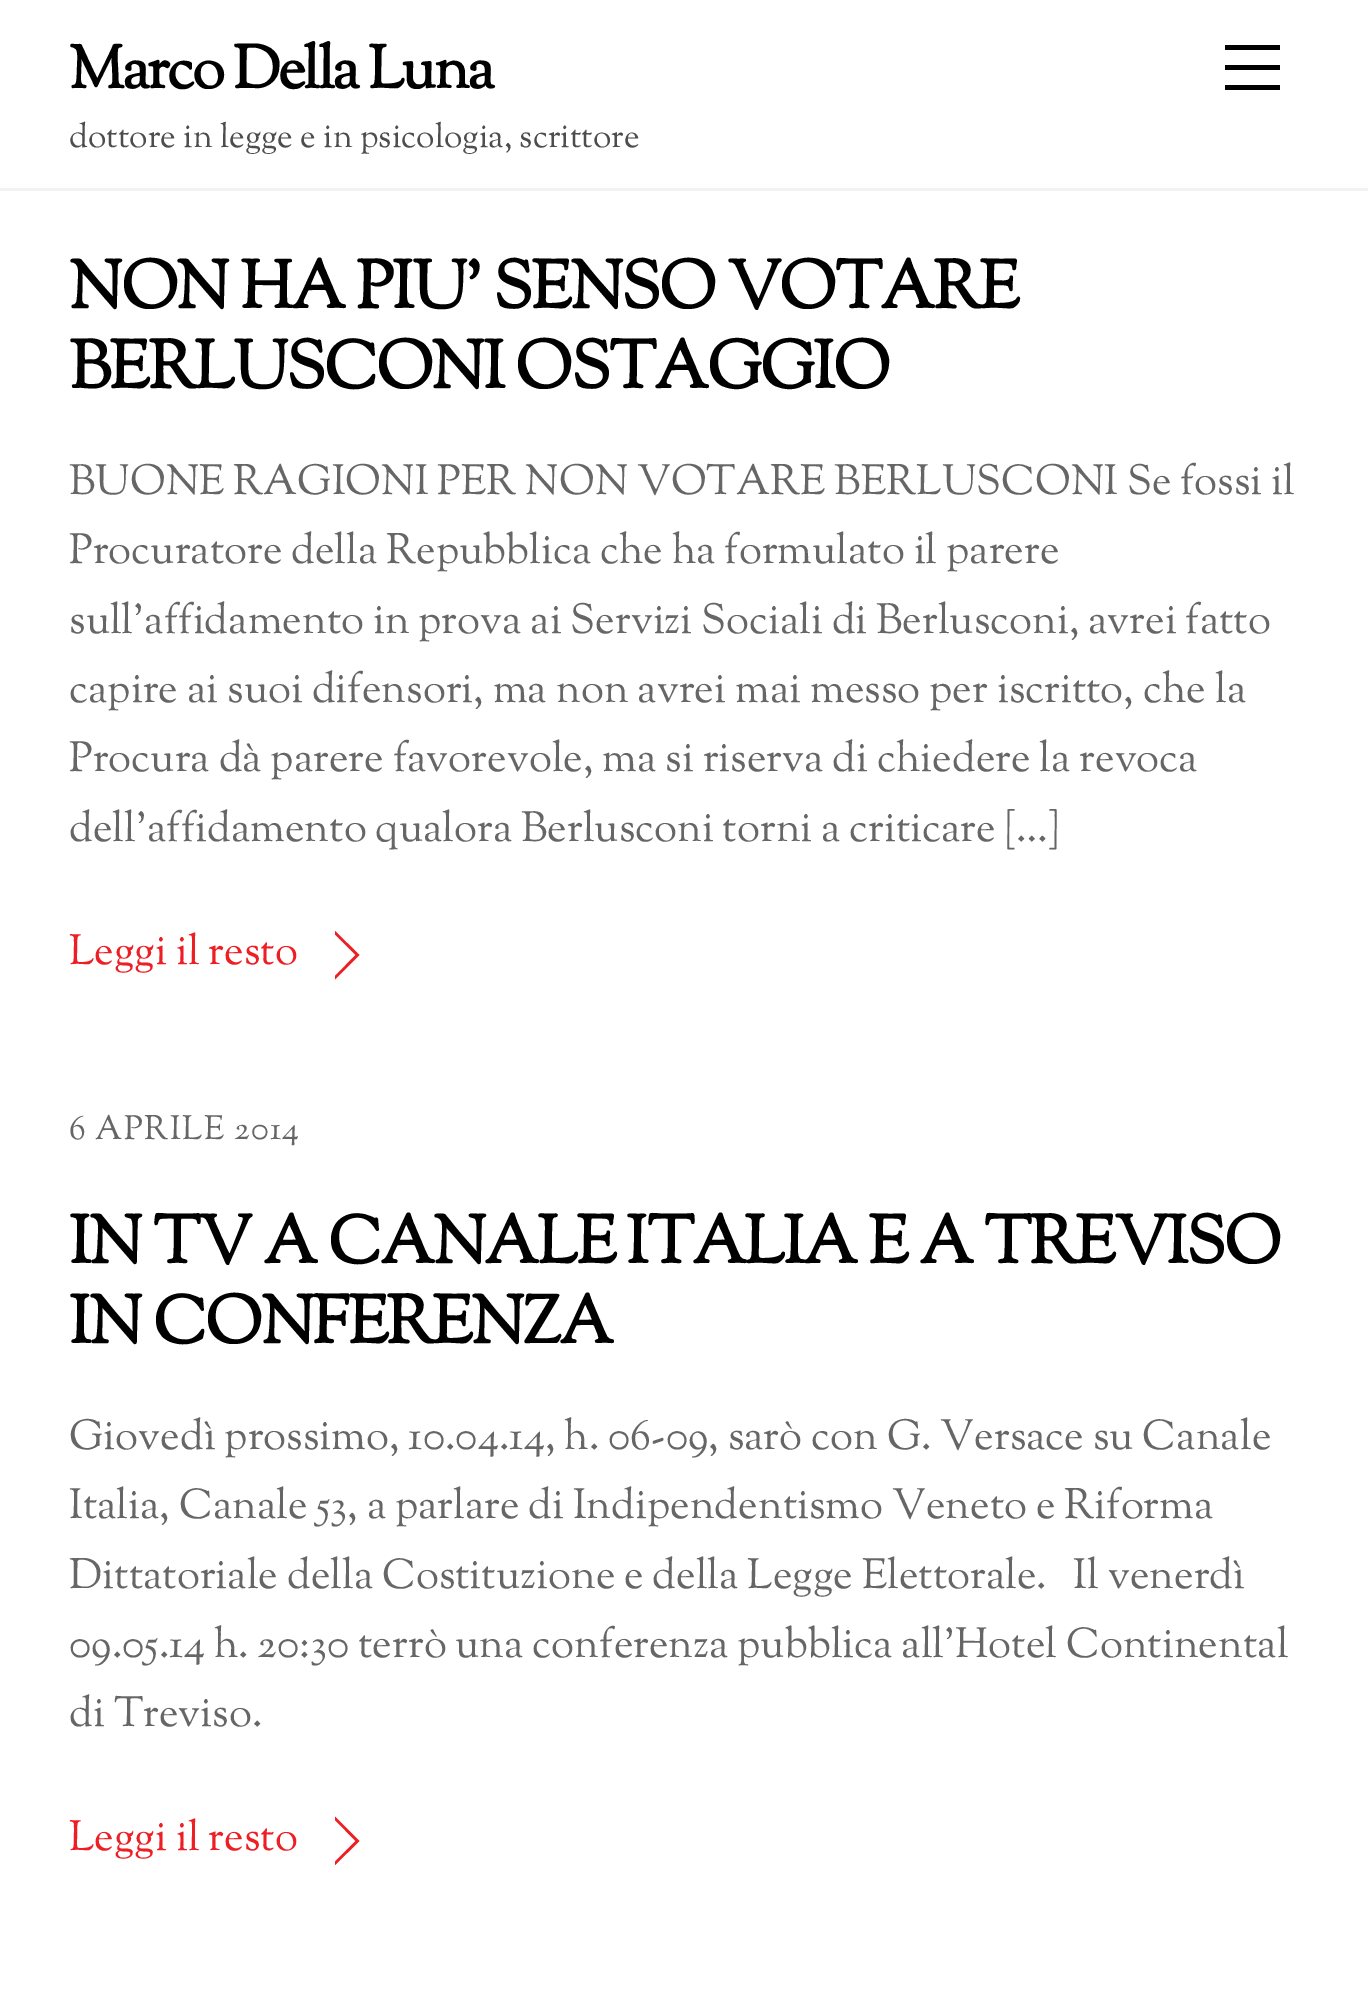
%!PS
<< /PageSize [1368 2004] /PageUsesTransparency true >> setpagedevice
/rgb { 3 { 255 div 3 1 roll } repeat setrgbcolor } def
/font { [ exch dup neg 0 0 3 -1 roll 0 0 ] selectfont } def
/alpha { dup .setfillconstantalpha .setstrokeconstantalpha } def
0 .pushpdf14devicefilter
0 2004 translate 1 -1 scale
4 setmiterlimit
255 255 255 rgb
0 0 1368 2004 rectfill
0.05 alpha
[
  [0 188 1368 3 0 0 0]
] { aload pop rgb rectfill } forall
1 alpha
[
  [1225 85 55 5 0 0 0]
  [1225 45 55 5 0 0 0]
  [1225 65 55 5 0 0 0]
] { aload pop rgb rectfill } forall
237 30 36 rgb
335 931 moveto 359.5 955 lineto 355.5 955 lineto 335 934.5 lineto closepath 359.5 955 moveto 335 979.5 lineto 335 976 lineto 355.5 955 lineto closepath fill
335 1816.5 moveto 359.5 1841 lineto 355.5 1841 lineto 335 1820 lineto closepath 359.5 1841 moveto 335 1865 lineto 335 1861.5 lineto 355.5 1841 lineto closepath fill
/SortsMillGoudy-Bold 60 font
0 0 0 rgb
69 88 moveto -2.4 0 (Marco Della Luna) ashow
/SortsMillGoudy-Regular 33.6 font
77 77 77 rgb
69 147 moveto (dottore in legge e in psicologia, scrittore) show
/SortsMillGoudy-Bold 67.25 font
0 0 0 rgb
69 308 moveto -2 0 (NON HA PIU’ SENSO VOTARE) ashow
69 388 moveto -2 0 (BERLUSCONI OSTAGGIO) ashow
/SortsMillGoudy-Regular 42 font
102 102 102 rgb
69 494 moveto -0.25 0 32 (BUONE RAGIONI PER NON VOTARE BERLUSCONI Se fossi il) widthshow
69 563 moveto -0.25 0 32 (Procuratore della Repubblica che ha formulato il parere) widthshow
69 633 moveto -0.25 0 32 (sull’affidamento in prova ai Servizi Sociali di Berlusconi, avrei fatto) widthshow
69 702 moveto (capire ai suoi difensori, ma non avrei mai messo per iscritto, che la) show
69 771 moveto -0.1 0 32 (Procura dà parere favorevole, ma si riserva di chiedere la revoca) widthshow
69 841 moveto -0.25 0 32 (dell’affidamento qualora Berlusconi torni a criticare […]) widthshow
237 30 36 rgb
69 964 moveto (Leggi il resto) show
/SortsMillGoudy-Regular 33.6 font
102 102 102 rgb
69 1139 moveto 1.3 0 (6 APRILE 2014) ashow
/SortsMillGoudy-Bold 67.25 font
0 0 0 rgb
69 1263 moveto -2 0 (IN TV A CANALE ITALIA E A TREVISO) ashow
69 1343 moveto -2 0 (IN CONFERENZA) ashow
/SortsMillGoudy-Regular 42 font
102 102 102 rgb
69 1449 moveto -0.1 0 32 (Giovedì prossimo, 10.04.14, h. 06-09, sarò con G. Versace su Canale) widthshow
69 1518 moveto -0.25 0 32 (Italia, Canale 53, a parlare di Indipendentismo Veneto e Riforma) widthshow
69 1588 moveto -0.1 0 32 (Dittatoriale della Costituzione e della Legge Elettorale.   Il venerdì) widthshow
69 1657 moveto -0.25 0 32 (09.05.14 h. 20:30 terrò una conferenza pubblica all’Hotel Continental) widthshow
69 1726 moveto (di Treviso.) show
237 30 36 rgb
69 1850 moveto (Leggi il resto) show
.poppdf14devicefilter showpage
